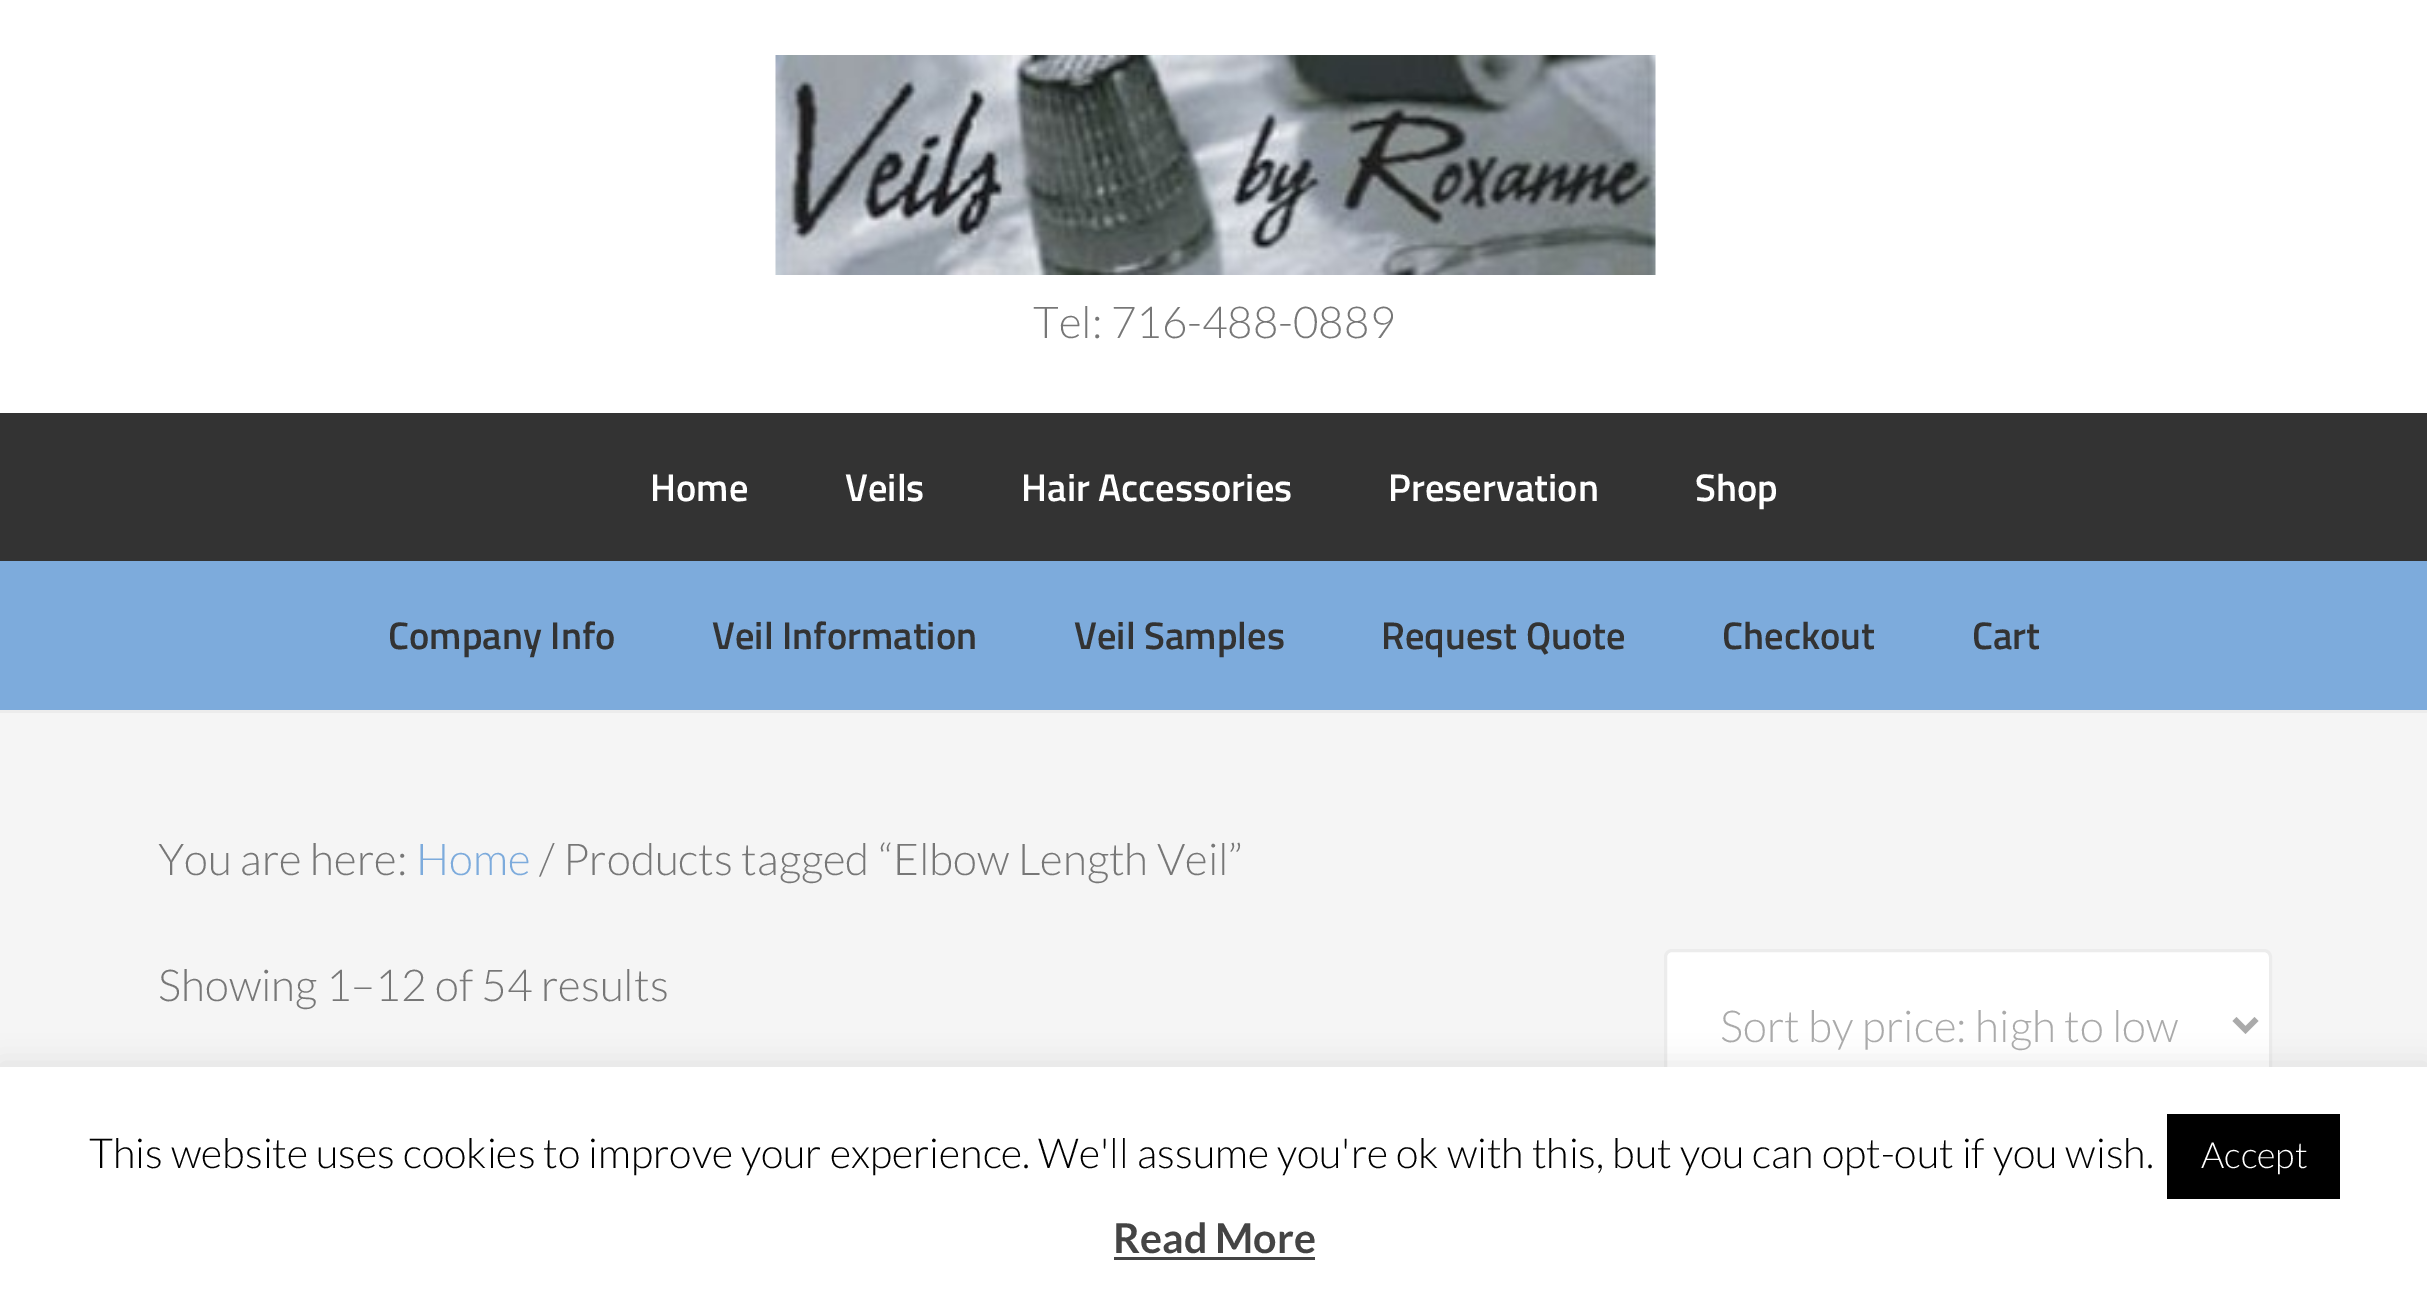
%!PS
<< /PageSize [2427 1303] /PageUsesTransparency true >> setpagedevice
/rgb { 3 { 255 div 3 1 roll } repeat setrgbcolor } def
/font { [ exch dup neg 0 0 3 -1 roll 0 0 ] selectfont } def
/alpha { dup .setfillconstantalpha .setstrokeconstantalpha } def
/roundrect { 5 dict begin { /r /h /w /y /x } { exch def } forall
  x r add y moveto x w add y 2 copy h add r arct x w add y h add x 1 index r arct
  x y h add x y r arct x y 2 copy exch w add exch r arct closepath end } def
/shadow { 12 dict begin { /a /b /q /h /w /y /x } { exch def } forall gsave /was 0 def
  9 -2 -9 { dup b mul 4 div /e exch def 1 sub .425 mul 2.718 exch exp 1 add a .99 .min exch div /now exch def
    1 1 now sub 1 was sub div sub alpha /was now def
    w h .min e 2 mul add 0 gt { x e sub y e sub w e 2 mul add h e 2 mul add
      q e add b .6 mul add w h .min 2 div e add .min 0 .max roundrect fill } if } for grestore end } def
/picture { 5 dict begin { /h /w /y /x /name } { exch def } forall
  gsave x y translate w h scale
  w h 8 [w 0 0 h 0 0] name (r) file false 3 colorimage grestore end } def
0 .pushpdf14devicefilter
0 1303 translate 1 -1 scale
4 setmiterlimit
255 255 255 rgb
0 0 2427 1303 rectfill
(img/1.rgb) 775 55 881 220 picture
[
  [0 413 2427 148 51 51 51]
  [0 561 2427 149 125 171 220]
  [0 713 2427 354 245 245 245]
  [0 710 2427 3 236 236 236]
] { aload pop rgb rectfill } forall
255 255 255 rgb
1665.5 950.5 605 148 6.5 roundrect gsave fill grestore
236 236 236 rgb
3 setlinewidth
stroke
170 170 170 rgb
5.5 setlinewidth
2234.5 1019 moveto 2245.5 1030 lineto 2256.5 1019 lineto stroke
172 171 171 rgb
0 1064 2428 237 0 14 0.3 shadow
[
  [0 1067 2427 236 255 255 255]
  [2167 1114 173 85 0 0 0]
  [1114 1257 201 3 68 68 68]
] { aload pop rgb rectfill } forall
/Lato-Light 44 font
119 119 119 rgb
1033 338 moveto (Tel: 716-488-0889) show
/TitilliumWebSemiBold-SemiBold 38.5 font
255 255 255 rgb
[
  [(Home) 650 501]
  [(Veils) 845 501]
  [(Hair Accessories) 1021 501]
  [(Preservation) 1388 501]
  [(Shop) 1695 501]
] { aload pop moveto show } forall
51 51 51 rgb
[
  [(Company Info) 388 649]
  [(Veil Information) 712 649]
  [(Veil Samples) 1074 649]
  [(Request Quote) 1381 649]
  [(Checkout) 1722 649]
  [(Cart) 1972 649]
] { aload pop moveto show } forall
/Lato-Light 44 font
119 119 119 rgb
158 875 moveto (You are here:) show
125 171 220 rgb
416 875 moveto (Home) show
119 119 119 rgb
539 875 moveto (/ Products tagged “Elbow Length Veil”) show
158 1001 moveto (Showing 1–12 of 54 results) show
170 170 170 rgb
1720 1042 moveto (Sort by price: high to low) show
/Lato-Light 41.25 font
0 0 0 rgb
89 1168 moveto (This website uses cookies to improve your experience. We'll assume you're ok with this, but you can opt-out if you wish.) show
/Lato-Light 36 font
255 255 255 rgb
2201 1168 moveto (Accept) show
/Lato-Bold 41.25 font
68 68 68 rgb
1113 1253 moveto (Read More) show
.poppdf14devicefilter showpage
